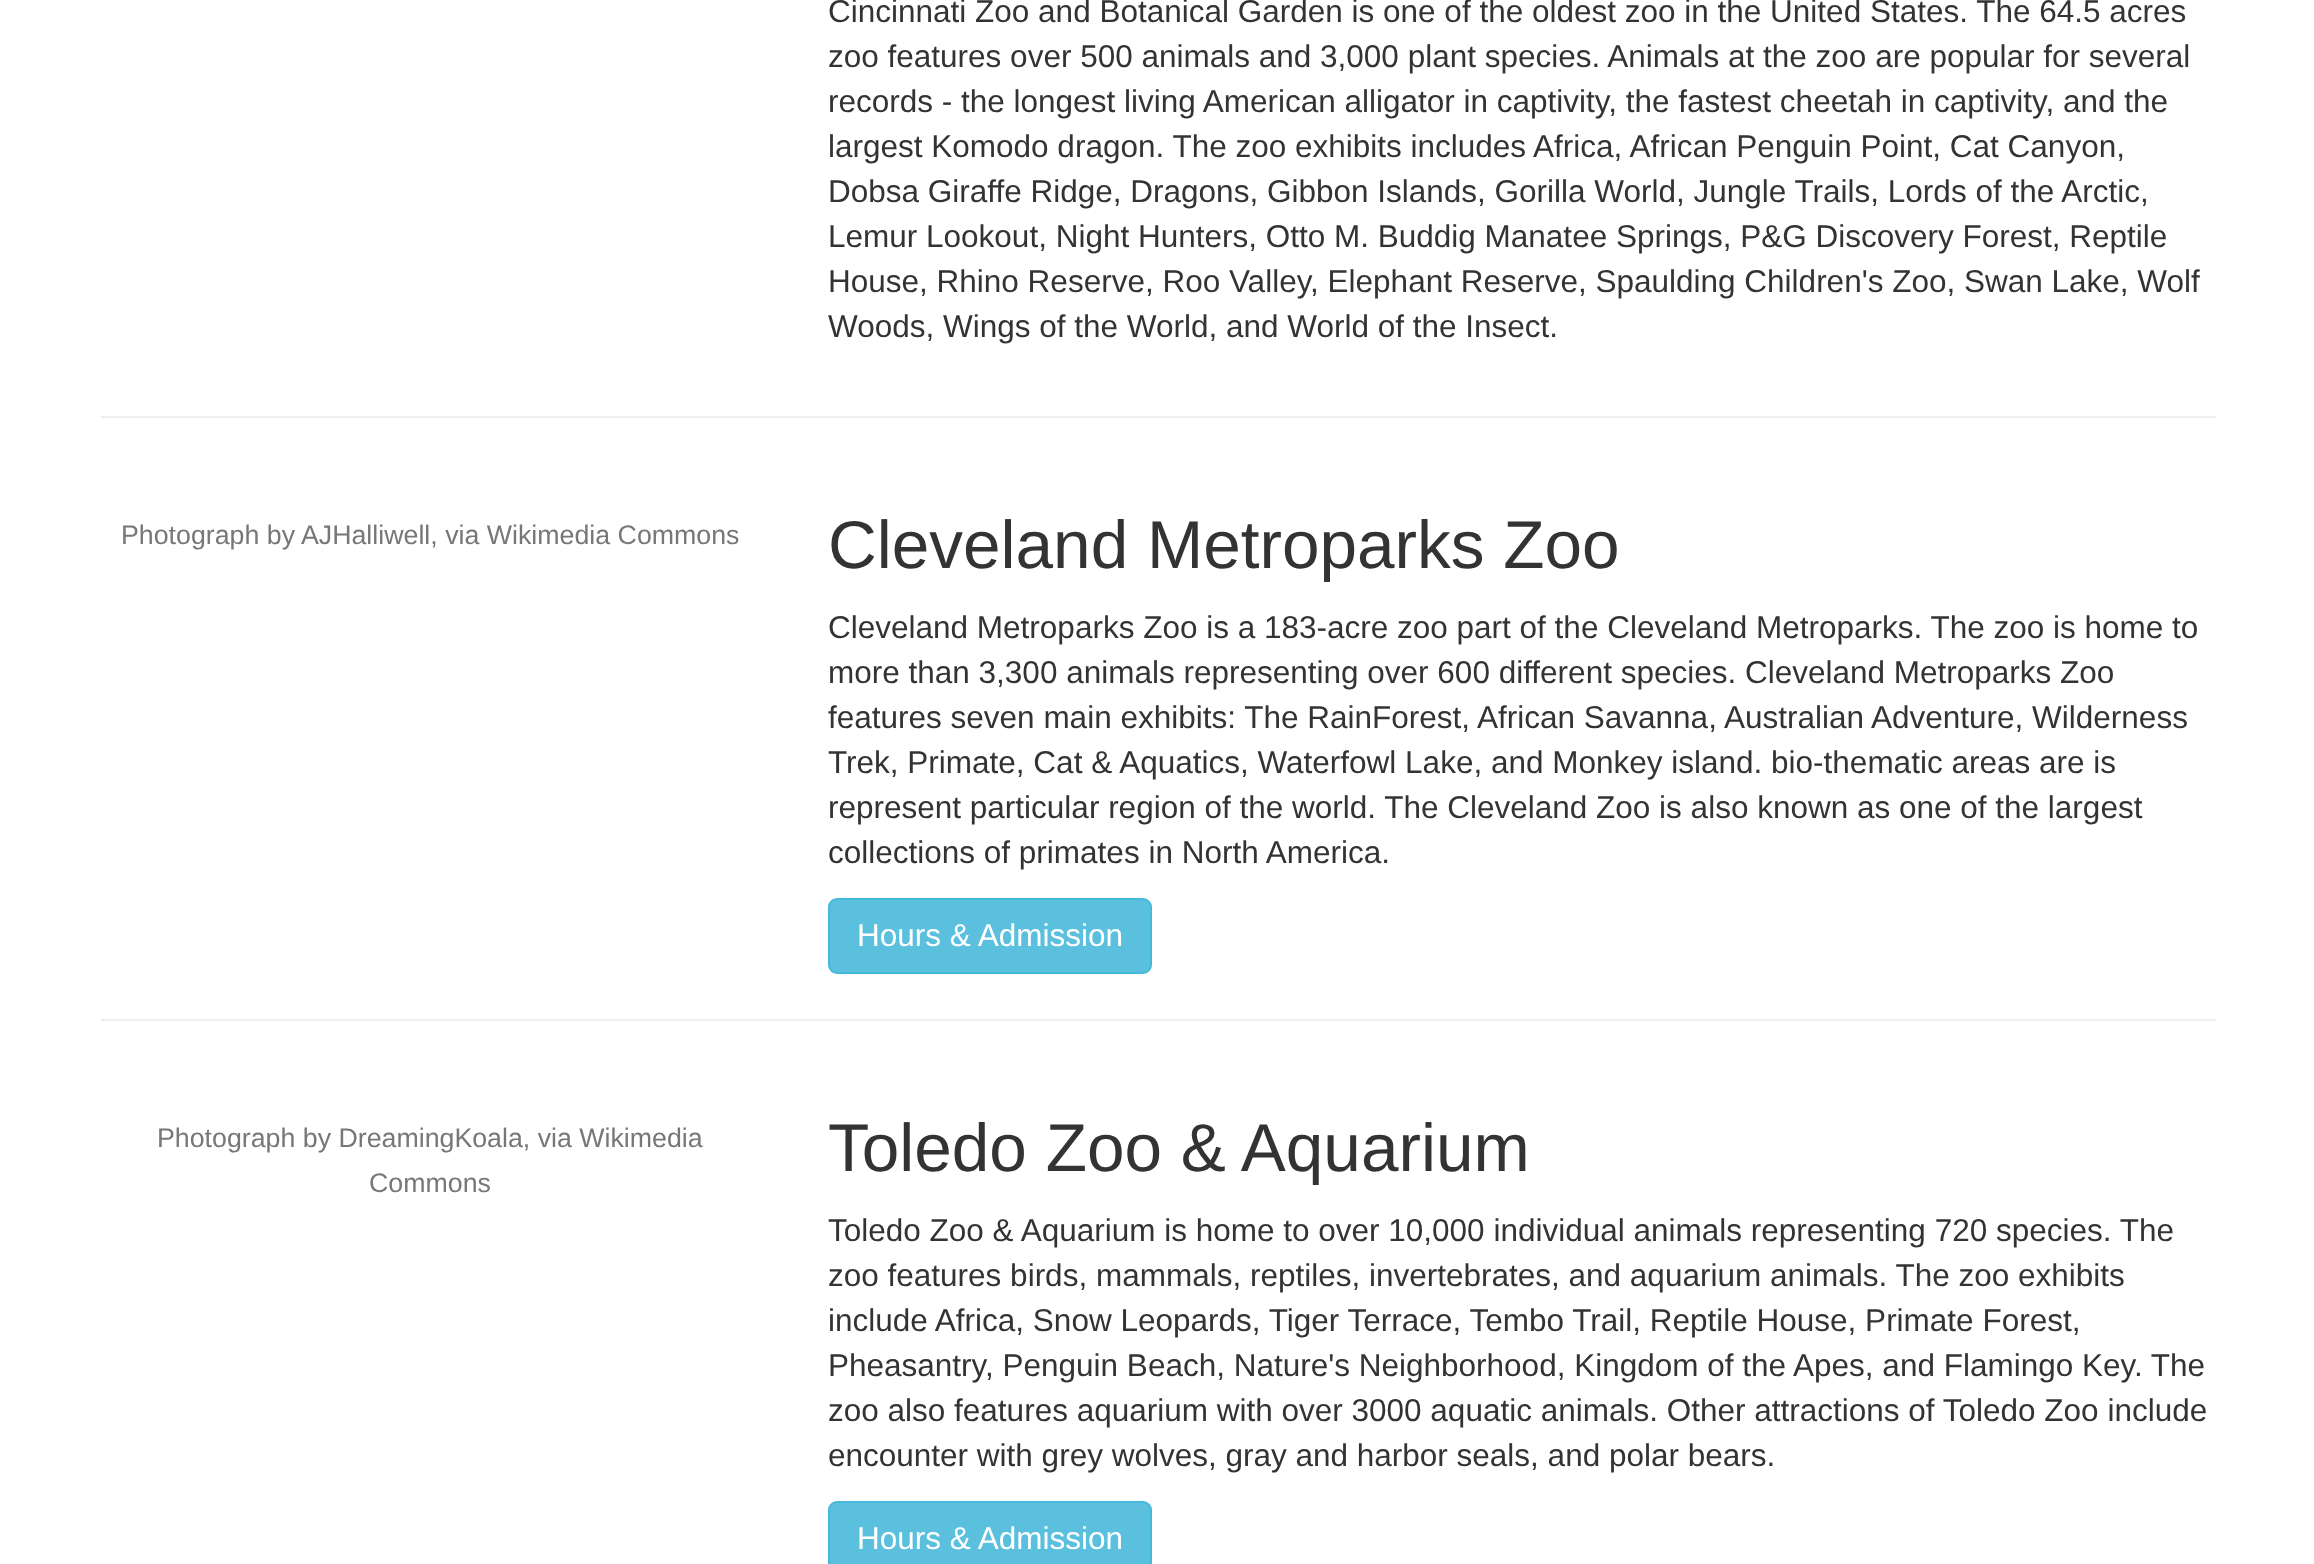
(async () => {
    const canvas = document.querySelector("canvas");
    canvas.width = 2314;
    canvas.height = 1564;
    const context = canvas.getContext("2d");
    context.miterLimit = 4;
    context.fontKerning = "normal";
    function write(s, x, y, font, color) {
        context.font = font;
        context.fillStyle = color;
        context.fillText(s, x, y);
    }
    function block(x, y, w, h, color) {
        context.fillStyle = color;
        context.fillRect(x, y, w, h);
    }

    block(0, 0, 2314, 1564, "rgb(255, 255, 255)");
    write("Cincinnati Zoo and Botanical Garden is one of the oldest zoo in the United States. The 64.5 acres", 828, 22, "31.5px Liberation Sans", "rgb(51, 51, 51)");
    write("zoo features over 500 animals and 3,000 plant species. Animals at the zoo are popular for several", 828, 67, "31.5px Liberation Sans", "rgb(51, 51, 51)");
    write("records - the longest living American alligator in captivity, the fastest cheetah in captivity, and the", 828, 112, "31.5px Liberation Sans", "rgb(51, 51, 51)");
    write("largest Komodo dragon. The zoo exhibits includes Africa, African Penguin Point, Cat Canyon,", 828, 157, "31.5px Liberation Sans", "rgb(51, 51, 51)");
    write("Dobsa Giraffe Ridge, Dragons, Gibbon Islands, Gorilla World, Jungle Trails, Lords of the Arctic,", 828, 202, "31.5px Liberation Sans", "rgb(51, 51, 51)");
    write("Lemur Lookout, Night Hunters, Otto M. Buddig Manatee Springs, P&G Discovery Forest, Reptile", 828, 247, "31.5px Liberation Sans", "rgb(51, 51, 51)");
    write("House, Rhino Reserve, Roo Valley, Elephant Reserve, Spaulding Children's Zoo, Swan Lake, Wolf", 828, 292, "31.5px Liberation Sans", "rgb(51, 51, 51)");
    write("Woods, Wings of the World, and World of the Insect.", 828, 337, "31.5px Liberation Sans", "rgb(51, 51, 51)");
    block(101, 416, 2115, 2, "rgb(238, 238, 238)");
    write("Photograph by AJHalliwell, via Wikimedia Commons", 121, 544, "26.75px Liberation Sans", "rgb(119, 119, 119)");
    write("Cleveland Metroparks Zoo", 828, 568, "67.5px Liberation Sans", "rgb(51, 51, 51)");
    write("Cleveland Metroparks Zoo is a 183-acre zoo part of the Cleveland Metroparks. The zoo is home to", 828, 638, "31.5px Liberation Sans", "rgb(51, 51, 51)");
    write("more than 3,300 animals representing over 600 different species. Cleveland Metroparks Zoo", 828, 683, "31.5px Liberation Sans", "rgb(51, 51, 51)");
    write("features seven main exhibits: The RainForest, African Savanna, Australian Adventure, Wilderness", 828, 728, "31.5px Liberation Sans", "rgb(51, 51, 51)");
    write("Trek, Primate, Cat & Aquatics, Waterfowl Lake, and Monkey island. bio-thematic areas are is", 828, 773, "31.5px Liberation Sans", "rgb(51, 51, 51)");
    write("represent particular region of the world. The Cleveland Zoo is also known as one of the largest", 828, 818, "31.5px Liberation Sans", "rgb(51, 51, 51)");
    write("collections of primates in North America.", 828, 863, "31.5px Liberation Sans", "rgb(51, 51, 51)");
    context.fillStyle = "rgb(91, 192, 222)";
    context.beginPath();
    context.roundRect(829, 899, 322, 74, 8);
    context.fill();
    context.strokeStyle = "rgb(70, 184, 218)";
    context.lineWidth = 2;
    context.stroke();
    write("Hours & Admission", 857, 946, "31.5px Liberation Sans", "rgb(255, 255, 255)");
    block(101, 1019, 2115, 2, "rgb(238, 238, 238)");
    write("Photograph by DreamingKoala, via Wikimedia", 157, 1147, "26.75px Liberation Sans", "rgb(119, 119, 119)");
    write("Commons", 369, 1192, "26.75px Liberation Sans", "rgb(119, 119, 119)");
    write("Toledo Zoo & Aquarium", 828, 1171, "67.5px Liberation Sans", "rgb(51, 51, 51)");
    write("Toledo Zoo & Aquarium is home to over 10,000 individual animals representing 720 species. The", 828, 1241, "31.5px Liberation Sans", "rgb(51, 51, 51)");
    write("zoo features birds, mammals, reptiles, invertebrates, and aquarium animals. The zoo exhibits", 828, 1286, "31.5px Liberation Sans", "rgb(51, 51, 51)");
    write("include Africa, Snow Leopards, Tiger Terrace, Tembo Trail, Reptile House, Primate Forest,", 828, 1331, "31.5px Liberation Sans", "rgb(51, 51, 51)");
    write("Pheasantry, Penguin Beach, Nature's Neighborhood, Kingdom of the Apes, and Flamingo Key. The", 828, 1376, "31.5px Liberation Sans", "rgb(51, 51, 51)");
    write("zoo also features aquarium with over 3000 aquatic animals. Other attractions of Toledo Zoo include", 828, 1421, "31.5px Liberation Sans", "rgb(51, 51, 51)");
    write("encounter with grey wolves, gray and harbor seals, and polar bears.", 828, 1466, "31.5px Liberation Sans", "rgb(51, 51, 51)");
    context.fillStyle = "rgb(91, 192, 222)";
    context.beginPath();
    context.roundRect(829, 1502, 322, 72, 8);
    context.fill();
    context.stroke();
    write("Hours & Admission", 857, 1549, "31.5px Liberation Sans", "rgb(255, 255, 255)");
})();
